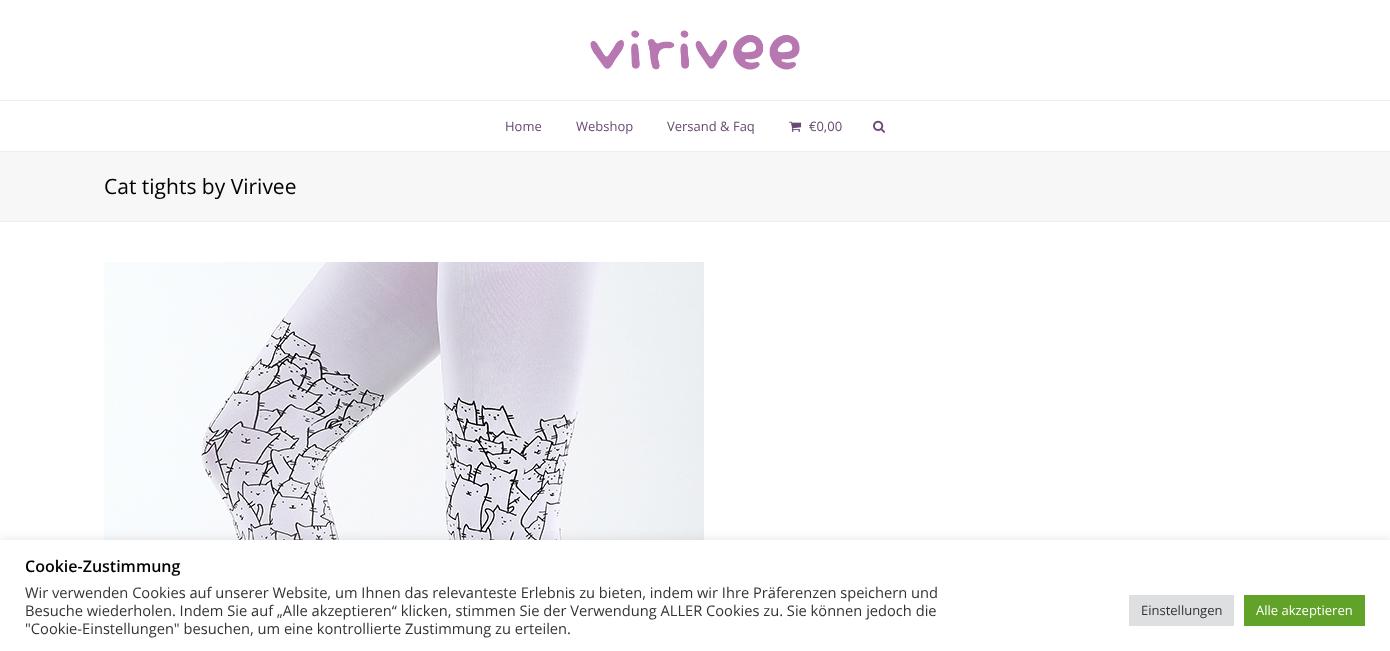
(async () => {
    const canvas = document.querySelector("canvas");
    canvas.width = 1390;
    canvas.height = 651;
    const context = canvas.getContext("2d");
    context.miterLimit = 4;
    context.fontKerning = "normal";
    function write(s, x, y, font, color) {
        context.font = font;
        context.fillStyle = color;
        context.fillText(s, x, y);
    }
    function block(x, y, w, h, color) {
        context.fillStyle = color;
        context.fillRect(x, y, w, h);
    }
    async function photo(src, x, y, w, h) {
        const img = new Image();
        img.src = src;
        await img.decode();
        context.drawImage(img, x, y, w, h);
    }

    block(0, 0, 1390, 651, "rgb(255, 255, 255)");
    await photo("media/1.png", 590, 30, 210, 40);
    block(0, 100, 1390, 1, "rgb(238, 238, 238)");
    write("Home", 505, 131, "13px Open Sans", "rgb(104, 74, 114)");
    write("Webshop", 576, 131, "13px Open Sans", "rgb(104, 74, 114)");
    write("Versand & Faq", 667, 131, "13px Open Sans", "rgb(104, 74, 114)");
    await photo("media/2.png", 789, 121, 13, 11);
    write("€0,00", 809, 131, "13px Open Sans", "rgb(104, 74, 114)");
    await photo("media/3.png", 873, 120, 12, 13);
    block(0, 152, 1390, 69, "rgb(247, 247, 247)");
    block(0, 151, 1390, 1, "rgb(238, 238, 238)");
    block(0, 221, 1390, 1, "rgb(238, 238, 238)");
    write("Cat tights by Virivee", 104, 194, "21px Open Sans", "rgb(0, 0, 0)");
    await photo("media/4.png", 104, 262, 600, 278);
    context.fillStyle = "rgba(172, 171, 171, 0.3)";
    context.filter = "blur(5px)";
    context.beginPath();
    context.rect(0, 539, 1390, 111);
    context.fill();
    context.filter = "none";
    block(0, 540, 1390, 111, "rgb(255, 255, 255)");
    write("Cookie-Zustimmung", 25, 572, "600 16px Open Sans", "rgb(0, 0, 0)");
    write("Wir verwenden Cookies auf unserer Website, um Ihnen das relevanteste Erlebnis zu bieten, indem wir Ihre Präferenzen speichern und", 25, 598, "14.67px Open Sans", "rgb(51, 51, 51)");
    write("Besuche wiederholen. Indem Sie auf „Alle akzeptieren“ klicken, stimmen Sie der Verwendung ALLER Cookies zu. Sie können jedoch die", 25, 616, "14.67px Open Sans", "rgb(51, 51, 51)");
    write("\"Cookie-Einstellungen\" besuchen, um eine kontrollierte Zustimmung zu erteilen.", 25, 634, "14.67px Open Sans", "rgb(51, 51, 51)");
    block(1129, 595, 105, 31, "rgb(222, 223, 224)");
    write("Einstellungen", 1141, 615, "13px Open Sans", "rgb(51, 51, 51)");
    block(1244, 595, 121, 31, "rgb(97, 162, 41)");
    write("Alle akzeptieren", 1256, 615, "13px Open Sans", "rgb(255, 255, 255)");
})();
